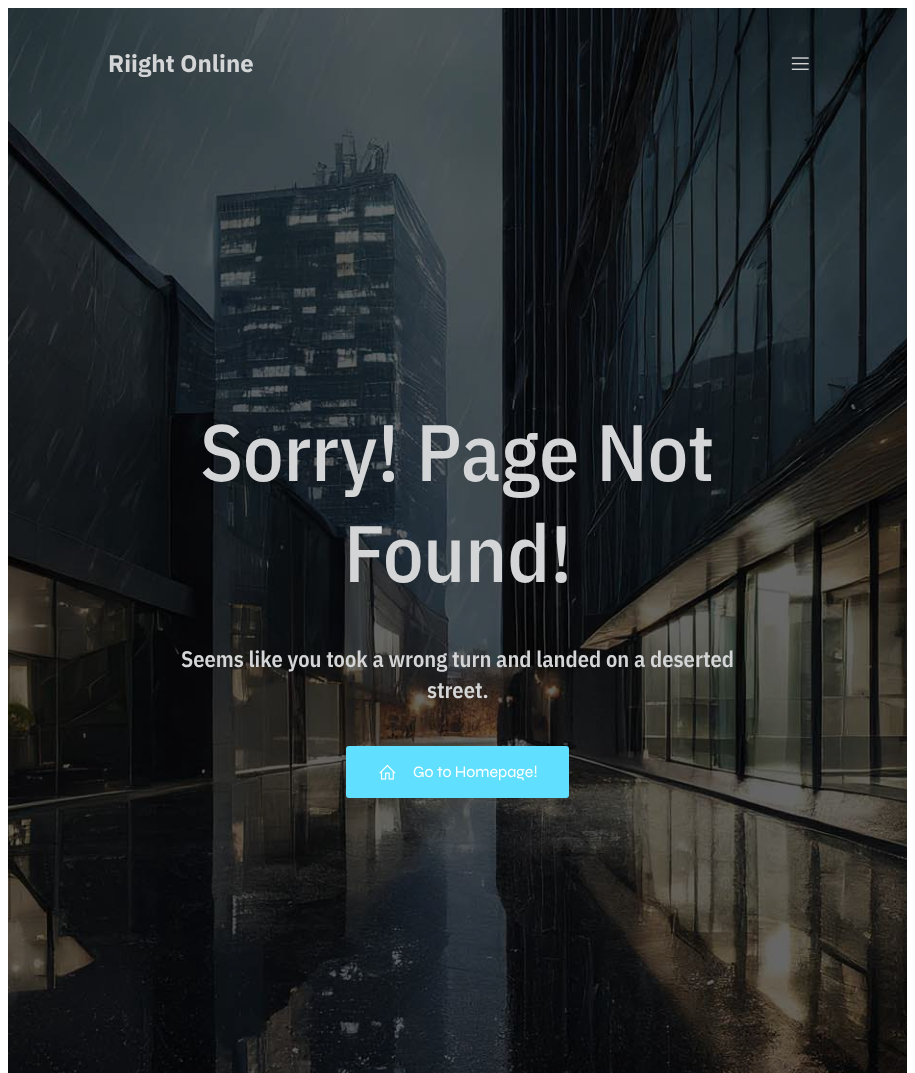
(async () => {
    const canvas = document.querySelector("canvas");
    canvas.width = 915;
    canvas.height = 1073;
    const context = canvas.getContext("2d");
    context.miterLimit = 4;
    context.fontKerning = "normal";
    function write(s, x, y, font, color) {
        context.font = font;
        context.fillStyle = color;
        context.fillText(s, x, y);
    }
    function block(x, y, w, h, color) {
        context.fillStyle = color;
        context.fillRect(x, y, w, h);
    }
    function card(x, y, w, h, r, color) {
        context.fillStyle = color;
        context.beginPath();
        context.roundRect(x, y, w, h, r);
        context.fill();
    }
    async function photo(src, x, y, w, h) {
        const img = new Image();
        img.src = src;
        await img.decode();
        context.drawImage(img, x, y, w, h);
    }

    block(0, 0, 915, 1073, "rgb(255, 255, 255)");
    await photo("media/2.png", 8, 8, 899, 1065);
    write("Riight Online", 108, 72, "bold 24px IBM Plex Sans", "rgb(212, 213, 214)");
    await photo("media/1.png", 791, 57, 18, 13);
    write("Sorry! Page Not", 200, 481, "500 80px IBM Plex Sans Condensed", "rgb(212, 213, 214)");
    write("Found!", 344, 582, "500 80px IBM Plex Sans Condensed", "rgb(212, 213, 214)");
    write("Seems like you took a wrong turn and landed on a deserted", 181, 667, "600 22.4px IBM Plex Sans Condensed", "rgb(212, 213, 214)");
    write("street.", 427, 698, "600 22.4px IBM Plex Sans Condensed", "rgb(212, 213, 214)");
    card(346, 746, 223, 52, 3, "rgb(96, 223, 255)");
    await photo("media/3.png", 379, 764, 17, 16);
    write("Go to Homepage!", 413, 777, "16px Syne", "rgb(255, 255, 255)");
})();
